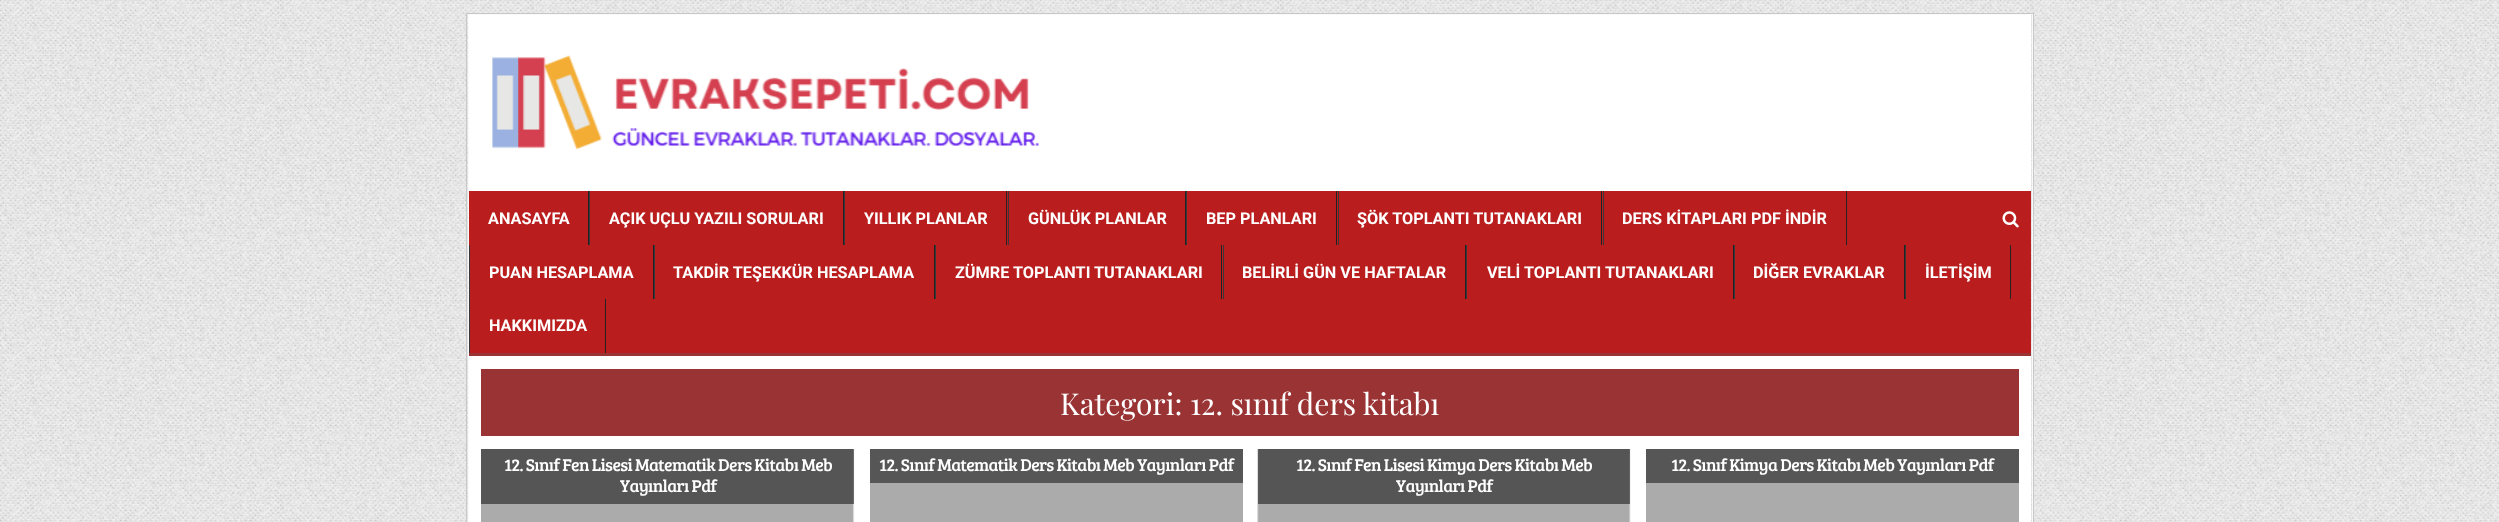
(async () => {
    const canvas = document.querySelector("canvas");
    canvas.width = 2499;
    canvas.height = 522;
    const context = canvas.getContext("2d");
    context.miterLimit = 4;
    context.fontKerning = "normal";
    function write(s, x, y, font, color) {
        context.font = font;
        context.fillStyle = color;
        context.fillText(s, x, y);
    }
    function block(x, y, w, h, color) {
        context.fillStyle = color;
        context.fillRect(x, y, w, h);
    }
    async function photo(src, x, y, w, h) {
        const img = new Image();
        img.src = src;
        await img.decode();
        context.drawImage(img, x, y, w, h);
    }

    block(0, 0, 2499, 522, "rgb(255, 255, 255)");
    await photo("media/1.png", 0, 0, 2499, 522);
    context.strokeStyle = "rgb(200, 200, 200)";
    context.strokeRect(466.5, 13.5, 1567, 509);
    context.strokeStyle = "rgb(249, 249, 249)";
    context.strokeRect(468.5, 14.5, 1564, 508);
    block(469, 15, 1562, 176, "rgb(255, 255, 255)");
    await photo("media/2.png", 492, 55, 547, 95);
    block(469, 191, 1562, 162, "rgb(186, 29, 29)");
    block(469, 353, 1562, 3, "rgb(154, 51, 52)");
    block(588, 191, 1, 54, "rgb(34, 34, 34)");
    write("ANASAYFA", 488, 224, "bold 16.25px Roboto", "rgb(255, 255, 255)");
    block(843, 191, 1, 54, "rgb(34, 34, 34)");
    block(589, 191, 1, 54, "rgb(56, 56, 56)");
    write("AÇIK UÇLU YAZILI SORULARI", 609, 224, "bold 16.25px Roboto", "rgb(255, 255, 255)");
    block(1006, 191, 1, 54, "rgb(34, 34, 34)");
    block(844, 191, 1, 54, "rgb(56, 56, 56)");
    write("YILLIK PLANLAR", 864, 224, "bold 16.25px Roboto", "rgb(255, 255, 255)");
    block(1185, 191, 1, 54, "rgb(34, 34, 34)");
    block(1008, 191, 1, 54, "rgb(56, 56, 56)");
    write("GÜNLÜK PLANLAR", 1028, 224, "bold 16.25px Roboto", "rgb(255, 255, 255)");
    block(1336, 191, 1, 54, "rgb(34, 34, 34)");
    block(1186, 191, 1, 54, "rgb(56, 56, 56)");
    write("BEP PLANLARI", 1206, 224, "bold 16.25px Roboto", "rgb(255, 255, 255)");
    block(1601, 191, 1, 54, "rgb(34, 34, 34)");
    block(1338, 191, 1, 54, "rgb(56, 56, 56)");
    write("ŞÖK TOPLANTI TUTANAKLARI", 1357, 224, "bold 16.25px Roboto", "rgb(255, 255, 255)");
    block(1846, 191, 1, 54, "rgb(34, 34, 34)");
    block(1603, 191, 1, 54, "rgb(56, 56, 56)");
    write("DERS KİTAPLARI PDF İNDİR", 1622, 224, "bold 16.25px Roboto", "rgb(255, 255, 255)");
    block(653, 245, 1, 54, "rgb(34, 34, 34)");
    block(469, 245, 1, 108, "rgb(56, 56, 56)");
    write("PUAN HESAPLAMA", 489, 278, "bold 16.25px Roboto", "rgb(255, 255, 255)");
    block(934, 245, 1, 54, "rgb(34, 34, 34)");
    block(654, 245, 1, 54, "rgb(56, 56, 56)");
    write("TAKDİR TEŞEKKÜR HESAPLAMA", 673, 278, "bold 16.25px Roboto", "rgb(255, 255, 255)");
    block(1221, 245, 1, 54, "rgb(34, 34, 34)");
    block(935, 245, 1, 54, "rgb(56, 56, 56)");
    write("ZÜMRE TOPLANTI TUTANAKLARI", 955, 278, "bold 16.25px Roboto", "rgb(255, 255, 255)");
    block(1465, 245, 1, 54, "rgb(34, 34, 34)");
    block(1223, 245, 1, 54, "rgb(56, 56, 56)");
    write("BELİRLİ GÜN VE HAFTALAR", 1242, 278, "bold 16.25px Roboto", "rgb(255, 255, 255)");
    block(1733, 245, 1, 54, "rgb(34, 34, 34)");
    block(1466, 245, 1, 54, "rgb(56, 56, 56)");
    write("VELİ TOPLANTI TUTANAKLARI", 1487, 278, "bold 16.25px Roboto", "rgb(255, 255, 255)");
    block(1904, 245, 1, 54, "rgb(34, 34, 34)");
    block(1734, 245, 1, 54, "rgb(56, 56, 56)");
    write("DİĞER EVRAKLAR", 1753, 278, "bold 16.25px Roboto", "rgb(255, 255, 255)");
    block(2010, 245, 1, 54, "rgb(34, 34, 34)");
    block(1905, 245, 1, 54, "rgb(56, 56, 56)");
    write("İLETİŞİM", 1925, 278, "bold 16.25px Roboto", "rgb(255, 255, 255)");
    block(605, 299, 1, 54, "rgb(34, 34, 34)");
    write("HAKKIMIZDA", 489, 331, "bold 16.25px Roboto", "rgb(255, 255, 255)");
    await photo("media/3.png", 2002, 211, 17, 17);
    block(469, 356, 1562, 166, "rgb(255, 255, 255)");
    block(481, 369, 1538, 67, "rgb(154, 51, 52)");
    write("Kategori: 12. sınıf ders kitabı", 1060, 415, "30px Playfair Display", "rgb(255, 255, 255)");
    await photo("media/4.png", 481, 449, 374, 73);
    block(481, 449, 373, 55, "rgba(0, 0, 0, 0.5)");
    context.letterSpacing = "-0.6px";
    write("12. Sınıf Fen Lisesi Matematik Ders Kitabı Meb", 504, 471, "17.5px Bree Serif", "rgb(255, 255, 255)");
    write("Yayınları Pdf", 620, 492, "17.5px Bree Serif", "rgb(255, 255, 255)");
    block(870, 449, 373, 34, "rgb(86, 86, 86)");
    write("12. Sınıf Matematik Ders Kitabı Meb Yayınları Pdf", 879, 471, "17.5px Bree Serif", "rgb(255, 255, 255)");
    block(870, 483, 373, 39, "rgb(171, 171, 171)");
    await photo("media/5.png", 1257, 449, 374, 73);
    block(1258, 449, 372, 55, "rgba(0, 0, 0, 0.5)");
    write("12. Sınıf Fen Lisesi Kimya Ders Kitabı Meb", 1296, 471, "17.5px Bree Serif", "rgb(255, 255, 255)");
    write("Yayınları Pdf", 1396, 492, "17.5px Bree Serif", "rgb(255, 255, 255)");
    block(1646, 449, 373, 34, "rgb(86, 86, 86)");
    write("12. Sınıf Kimya Ders Kitabı Meb Yayınları Pdf", 1671, 471, "17.5px Bree Serif", "rgb(255, 255, 255)");
    block(1646, 483, 373, 39, "rgb(171, 171, 171)");
})();
